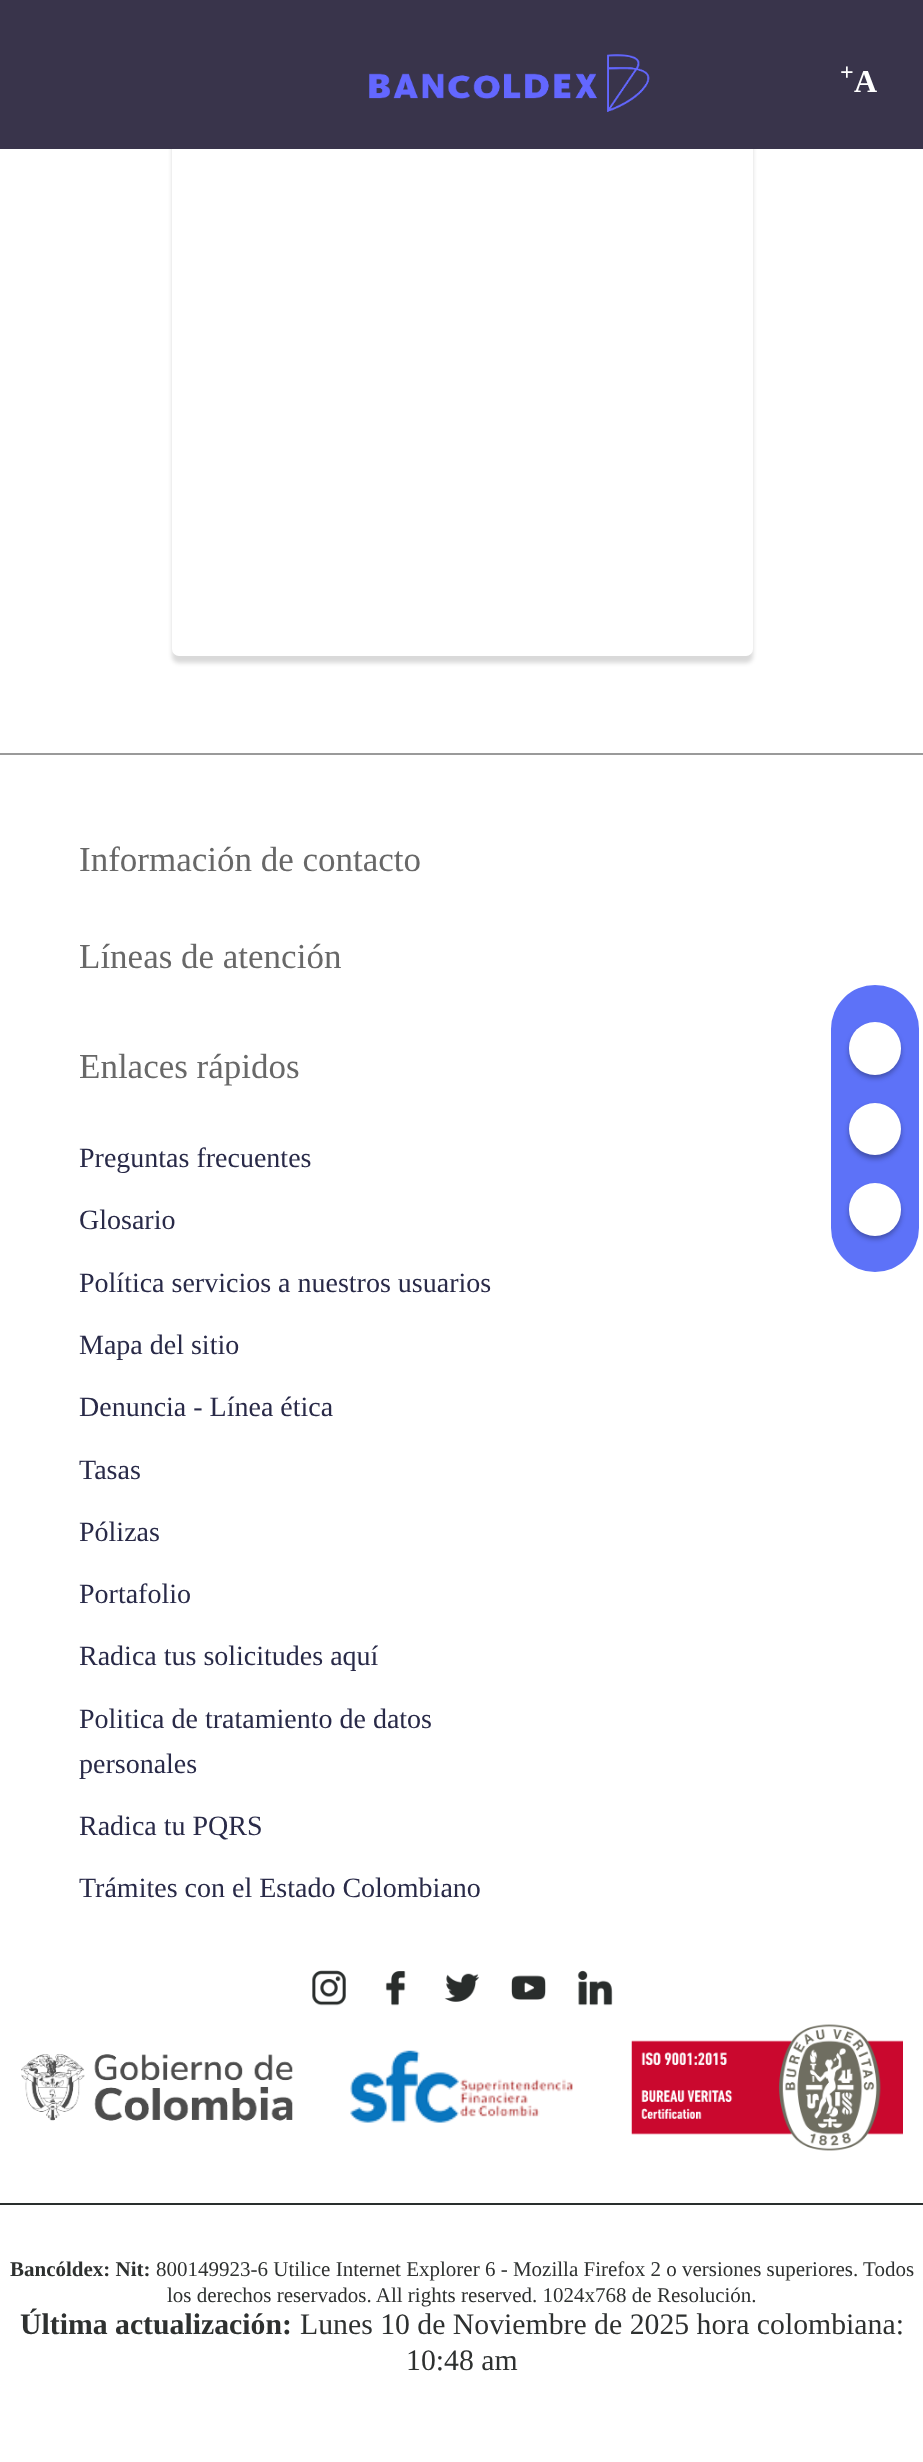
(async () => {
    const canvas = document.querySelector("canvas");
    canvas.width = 923;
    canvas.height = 2462;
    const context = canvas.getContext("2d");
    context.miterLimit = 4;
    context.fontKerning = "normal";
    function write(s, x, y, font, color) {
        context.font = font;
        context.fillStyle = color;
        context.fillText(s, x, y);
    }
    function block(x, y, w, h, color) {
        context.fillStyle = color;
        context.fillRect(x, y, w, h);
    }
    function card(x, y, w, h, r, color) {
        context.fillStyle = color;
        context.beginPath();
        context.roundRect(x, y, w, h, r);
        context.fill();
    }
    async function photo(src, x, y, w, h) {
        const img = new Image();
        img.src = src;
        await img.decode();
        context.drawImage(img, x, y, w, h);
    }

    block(0, 0, 923, 2462, "rgb(255, 255, 255)");
    context.fillStyle = "rgba(0, 0, 0, 0.15)";
    context.filter = "blur(2px)";
    context.beginPath();
    context.roundRect(172, 33, 581, 630, 7);
    context.fill();
    context.filter = "none";
    card(172, 26, 581, 630, 7, "rgb(255, 255, 255)");
    card(831, 985, 88, 287, 44, "rgb(93, 114, 248)");
    context.fillStyle = "rgba(0, 0, 0, 0.3)";
    context.filter = "blur(2.5px)";
    context.beginPath();
    context.roundRect(849, 1026, 52, 52, 26);
    context.fill();
    context.filter = "none";
    card(849, 1022, 52, 53, 26, "rgb(255, 255, 255)");
    context.fillStyle = "rgba(0, 0, 0, 0.3)";
    context.filter = "blur(2.5px)";
    context.beginPath();
    context.roundRect(849, 1106, 52, 53, 26);
    context.fill();
    context.filter = "none";
    context.fillStyle = "rgb(255, 255, 255)";
    context.beginPath();
    context.arc(875, 1129, 26, 0, Math.PI * 2);
    context.fill();
    context.fillStyle = "rgba(0, 0, 0, 0.3)";
    context.filter = "blur(2.5px)";
    context.beginPath();
    context.roundRect(849, 1187, 52, 52, 26);
    context.fill();
    context.filter = "none";
    card(849, 1183, 52, 53, 26, "rgb(255, 255, 255)");
    block(0, 0, 923, 149, "rgb(57, 52, 75)");
    await photo("media/1.png", 369, 54, 281, 58);
    write("+", 840, 80, "bold 24px Liberation Serif", "rgb(255, 255, 255)");
    write("A", 854, 92, "bold 32px Liberation Serif", "rgb(255, 255, 255)");
    block(0, 753, 923, 2, "rgb(154, 154, 154)");
    write("Información de contacto", 79, 871, "35px Liberation Serif", "rgb(104, 104, 104)");
    write("Líneas de atención", 79, 968, "35px Liberation Serif", "rgb(104, 104, 104)");
    write("Enlaces rápidos", 79, 1078, "35px Liberation Serif", "rgb(104, 104, 104)");
    write("Preguntas frecuentes", 79, 1167, "28px Liberation Serif", "rgb(41, 42, 72)");
    write("Glosario", 79, 1229, "28px Liberation Serif", "rgb(41, 42, 72)");
    write("Política servicios a nuestros usuarios", 79, 1292, "28px Liberation Serif", "rgb(41, 42, 72)");
    write("Mapa del sitio", 79, 1354, "28px Liberation Serif", "rgb(41, 42, 72)");
    write("Denuncia - Línea ética", 79, 1416, "28px Liberation Serif", "rgb(41, 42, 72)");
    write("Tasas", 79, 1479, "28px Liberation Serif", "rgb(41, 42, 72)");
    write("Pólizas", 79, 1541, "28px Liberation Serif", "rgb(41, 42, 72)");
    write("Portafolio", 79, 1603, "28px Liberation Serif", "rgb(41, 42, 72)");
    write("Radica tus solicitudes aquí", 79, 1665, "28px Liberation Serif", "rgb(41, 42, 72)");
    write("Politica de tratamiento de datos", 79, 1728, "28px Liberation Serif", "rgb(41, 42, 72)");
    write("personales", 79, 1773, "28px Liberation Serif", "rgb(41, 42, 72)");
    write("Radica tu PQRS", 79, 1835, "28px Liberation Serif", "rgb(41, 42, 72)");
    write("Trámites con el Estado Colombiano", 79, 1897, "28px Liberation Serif", "rgb(41, 42, 72)");
    await photo("media/2.png", 312, 1970, 34, 36);
    await photo("media/3.png", 385, 1971, 21, 35);
    await photo("media/4.png", 444, 1973, 36, 29);
    await photo("media/5.png", 511, 1975, 35, 25);
    await photo("media/6.png", 577, 1970, 36, 36);
    await photo("media/7.png", 21, 2054, 272, 67);
    await photo("media/8.png", 350, 2050, 223, 73);
    await photo("media/9.png", 631, 2024, 272, 127);
    block(0, 2203, 923, 2, "rgb(41, 46, 45)");
    write("Bancóldex: Nit:", 10, 2276, "bold 21px Liberation Serif", "rgb(46, 49, 48)");
    write("800149923-6 Utilice Internet Explorer 6 - Mozilla Firefox 2 o versiones superiores. Todos", 156, 2276, "21px Liberation Serif", "rgb(46, 49, 48)");
    write("los derechos reservados. All rights reserved. 1024x768 de Resolución.", 167, 2302, "21px Liberation Serif", "rgb(46, 49, 48)");
    write("Última actualización:", 20, 2334, "bold 29.75px Liberation Serif", "rgb(46, 49, 48)");
    write("Lunes 10 de Noviembre de 2025 hora colombiana:", 300, 2334, "29.75px Liberation Serif", "rgb(46, 49, 48)");
    write("10:48 am", 406, 2370, "29.75px Liberation Serif", "rgb(46, 49, 48)");
})();
